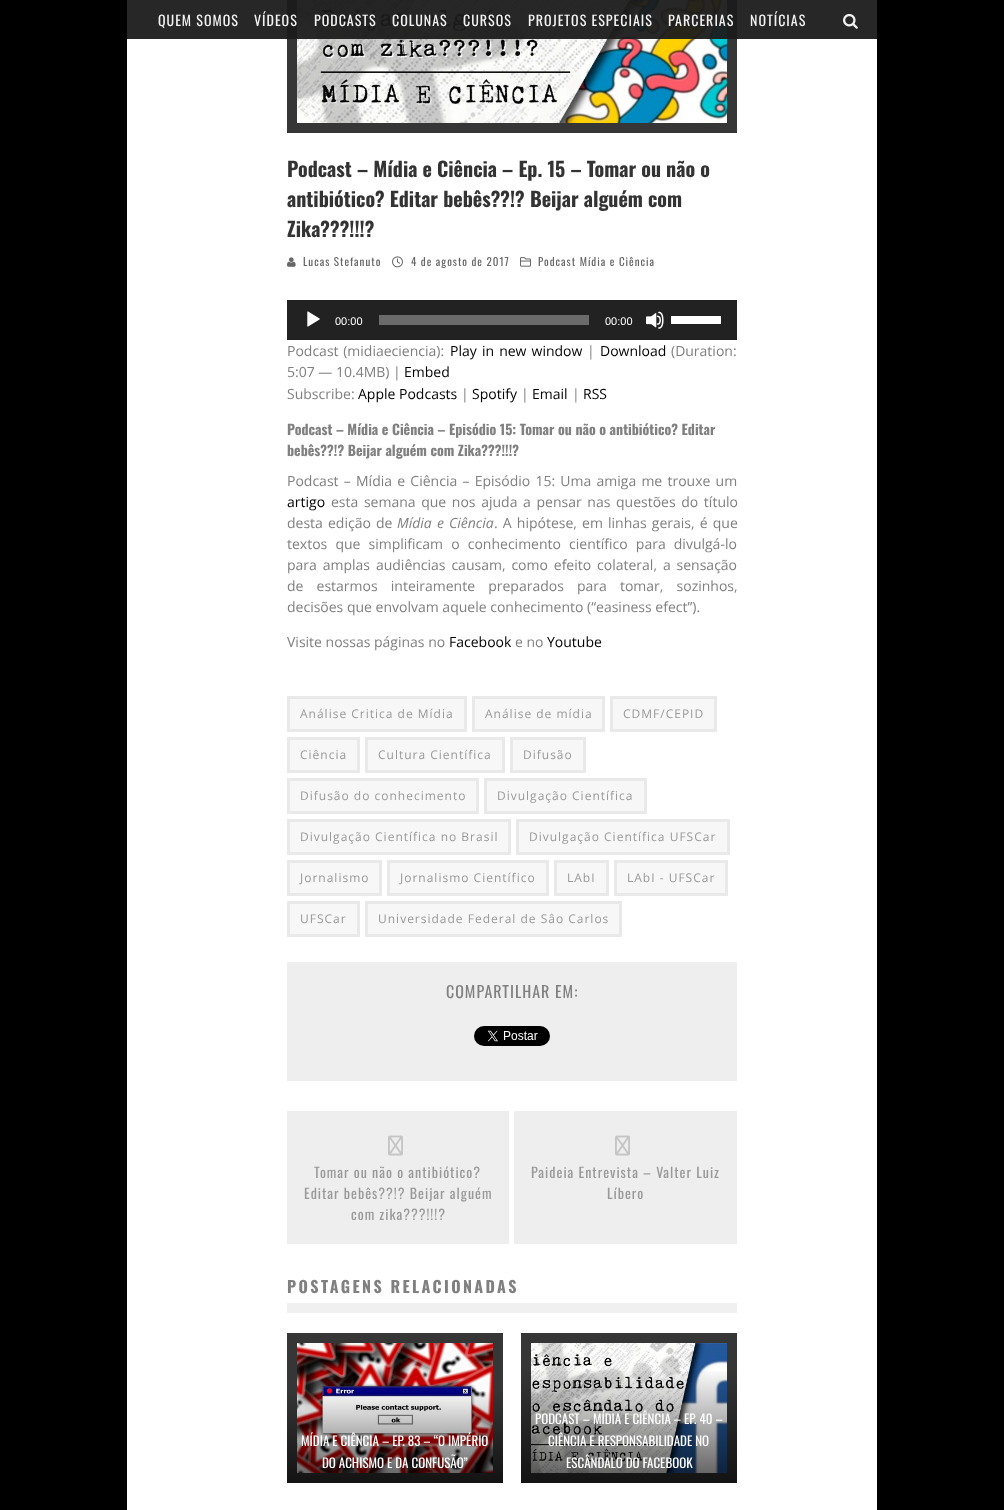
(async () => {
    const canvas = document.querySelector("canvas");
    canvas.width = 1004;
    canvas.height = 1510;
    const context = canvas.getContext("2d");
    context.miterLimit = 4;
    context.fontKerning = "normal";
    function write(s, x, y, font, color) {
        context.font = font;
        context.fillStyle = color;
        context.fillText(s, x, y);
    }
    function block(x, y, w, h, color) {
        context.fillStyle = color;
        context.fillRect(x, y, w, h);
    }
    async function photo(src, x, y, w, h) {
        const img = new Image();
        img.src = src;
        await img.decode();
        context.drawImage(img, x, y, w, h);
    }
    let gradient;

    block(0, 0, 1004, 1510, "rgb(0, 0, 0)");
    block(127, 0, 750, 1510, "rgb(255, 255, 255)");
    block(287, 0, 450, 133, "rgb(54, 54, 54)");
    await photo("media/2.png", 297, 0, 430, 123);
    block(127, 0, 750, 39, "rgba(27, 27, 27, 0.95)");
    context.letterSpacing = "1px";
    write("QUEM SOMOS", 158, 26, "14px Oswald", "rgb(242, 242, 242)");
    write("VÍDEOS", 254, 26, "14px Oswald", "rgb(242, 242, 242)");
    write("PODCASTS", 314, 26, "14px Oswald", "rgb(242, 242, 242)");
    write("COLUNAS", 392, 26, "14px Oswald", "rgb(242, 242, 242)");
    write("CURSOS", 463, 26, "14px Oswald", "rgb(242, 242, 242)");
    write("PROJETOS ESPECIAIS", 528, 26, "14px Oswald", "rgb(242, 242, 242)");
    write("PARCERIAS", 668, 26, "14px Oswald", "rgb(242, 242, 242)");
    write("NOTÍCIAS", 750, 26, "14px Oswald", "rgb(242, 242, 242)");
    await photo("media/1.png", 843, 13, 15, 16);
    context.letterSpacing = "0px";
    write("Podcast – Mídia e Ciência – Ep. 15 – Tomar ou não o", 287, 177, "bold 20px Oswald", "rgb(51, 51, 51)");
    write("antibiótico? Editar bebês??!? Beijar alguém com", 287, 207, "bold 20px Oswald", "rgb(51, 51, 51)");
    write("Zika???!!!?", 287, 237, "bold 20px Oswald", "rgb(51, 51, 51)");
    await photo("media/3.png", 287, 257, 9, 10);
    context.letterSpacing = "1px";
    write("Lucas Stefanuto", 303, 266, "11px Oswald", "rgb(103, 103, 103)");
    await photo("media/4.png", 392, 256, 11, 12);
    write("4 de agosto de 2017", 411, 266, "11px Oswald", "rgb(103, 103, 103)");
    await photo("media/5.png", 520, 257, 11, 10);
    write("Podcast Mídia e Ciência", 538, 266, "11px Oswald", "rgb(103, 103, 103)");
    block(287, 300, 450, 40, "rgb(34, 34, 34)");
    await photo("media/6.png", 307, 311, 13, 16);
    context.letterSpacing = "0px";
    write("00:00", 335, 325, "11px Liberation Sans", "rgb(255, 255, 255)");
    block(379, 315, 210, 10, "rgb(107, 107, 107)");
    write("00:00", 605, 325, "11px Liberation Sans", "rgb(255, 255, 255)");
    await photo("media/7.png", 646, 311, 18, 18);
    block(671, 316, 50, 8, "rgb(255, 255, 255)");
    context.wordSpacing = "1px";
    write("Podcast (midiaeciencia):", 287, 356, "14px Open Sans", "rgb(128, 128, 128)");
    context.wordSpacing = "1.5px";
    write("Play in new window", 450, 356, "14px Open Sans", "rgb(0, 0, 0)");
    context.wordSpacing = "0px";
    write("|", 587, 356, "14px Open Sans", "rgb(128, 128, 128)");
    write("Download", 600, 356, "14px Open Sans", "rgb(0, 0, 0)");
    write("(Duration:", 671, 356, "14px Open Sans", "rgb(128, 128, 128)");
    write("5:07 — 10.4MB) |", 287, 377, "14px Open Sans", "rgb(128, 128, 128)");
    write("Embed", 404, 377, "14px Open Sans", "rgb(0, 0, 0)");
    write("Subscribe:", 287, 399, "14px Open Sans", "rgb(128, 128, 128)");
    write("Apple Podcasts", 358, 399, "14px Open Sans", "rgb(0, 0, 0)");
    write("|", 461, 399, "14px Open Sans", "rgb(128, 128, 128)");
    write("Spotify", 472, 399, "14px Open Sans", "rgb(0, 0, 0)");
    write("|", 521, 399, "14px Open Sans", "rgb(128, 128, 128)");
    write("Email", 532, 399, "14px Open Sans", "rgb(0, 0, 0)");
    write("|", 572, 399, "14px Open Sans", "rgb(128, 128, 128)");
    write("RSS", 583, 399, "14px Open Sans", "rgb(0, 0, 0)");
    write("Podcast – Mídia e Ciência – Episódio 15: Tomar ou não o antibiótico? Editar", 287, 435, "bold 14px Oswald", "rgb(128, 128, 128)");
    write("bebês??!? Beijar alguém com Zika???!!!?", 287, 456, "bold 14px Oswald", "rgb(128, 128, 128)");
    context.wordSpacing = "1.6px";
    write("Podcast – Mídia e Ciência – Episódio 15: Uma amiga me trouxe um", 287, 486, "14px Open Sans", "rgb(128, 128, 128)");
    context.wordSpacing = "0px";
    write("artigo", 287, 507, "14px Open Sans", "rgb(0, 0, 0)");
    context.wordSpacing = "2px";
    write("esta semana que nos ajuda a pensar nas questões do título", 331, 507, "14px Open Sans", "rgb(128, 128, 128)");
    context.wordSpacing = "1.5px";
    write("desta edição de", 287, 528, "14px Open Sans", "rgb(128, 128, 128)");
    write("Mídia e Ciência", 397, 528, "italic 14px Open Sans", "rgb(128, 128, 128)");
    write(". A hipótese, em linhas gerais, é que", 494, 528, "14px Open Sans", "rgb(128, 128, 128)");
    context.wordSpacing = "4.5px";
    write("textos que simplificam o conhecimento científico para divulgá-lo", 287, 549, "14px Open Sans", "rgb(128, 128, 128)");
    context.wordSpacing = "2.25px";
    write("para amplas audiências causam, como efeito colateral, a sensação", 287, 570, "14px Open Sans", "rgb(128, 128, 128)");
    context.wordSpacing = "9.5px";
    write("de estarmos inteiramente preparados para tomar, sozinhos,", 287, 591, "14px Open Sans", "rgb(128, 128, 128)");
    context.wordSpacing = "0px";
    write("decisões que envolvam aquele conhecimento (“easiness efect”).", 287, 612, "14px Open Sans", "rgb(128, 128, 128)");
    write("Visite nossas páginas no", 287, 647, "14px Open Sans", "rgb(128, 128, 128)");
    write("Facebook", 449, 647, "14px Open Sans", "rgb(0, 0, 0)");
    write("e no", 515, 647, "14px Open Sans", "rgb(128, 128, 128)");
    write("Youtube", 547, 647, "14px Open Sans", "rgb(0, 0, 0)");
    context.fillStyle = "rgb(247, 247, 247)";
    context.beginPath();
    context.rect(288.5, 697.5, 177, 33);
    context.fill();
    context.strokeStyle = "rgb(233, 233, 233)";
    context.lineWidth = 3;
    context.stroke();
    context.letterSpacing = "1px";
    write("Análise Critica de Mídia", 300, 718, "12px Open Sans", "rgb(153, 153, 153)");
    context.fillStyle = "rgb(247, 247, 247)";
    context.beginPath();
    context.rect(473.5, 697.5, 130, 33);
    context.fill();
    context.stroke();
    write("Análise de mídia", 485, 718, "12px Open Sans", "rgb(153, 153, 153)");
    context.fillStyle = "rgb(247, 247, 247)";
    context.beginPath();
    context.rect(611.5, 697.5, 104, 33);
    context.fill();
    context.stroke();
    write("CDMF/CEPID", 623, 718, "12px Open Sans", "rgb(153, 153, 153)");
    context.fillStyle = "rgb(247, 247, 247)";
    context.beginPath();
    context.rect(288.5, 738.5, 70, 33);
    context.fill();
    context.stroke();
    write("Ciência", 300, 759, "12px Open Sans", "rgb(153, 153, 153)");
    context.fillStyle = "rgb(247, 247, 247)";
    context.beginPath();
    context.rect(366.5, 738.5, 137, 33);
    context.fill();
    context.stroke();
    write("Cultura Científica", 378, 759, "12px Open Sans", "rgb(153, 153, 153)");
    context.fillStyle = "rgb(247, 247, 247)";
    context.beginPath();
    context.rect(511.5, 738.5, 73, 33);
    context.fill();
    context.stroke();
    write("Difusão", 523, 759, "12px Open Sans", "rgb(153, 153, 153)");
    context.fillStyle = "rgb(247, 247, 247)";
    context.beginPath();
    context.rect(288.5, 779.5, 189, 33);
    context.fill();
    context.stroke();
    write("Difusão do conhecimento", 300, 800, "12px Open Sans", "rgb(153, 153, 153)");
    context.fillStyle = "rgb(247, 247, 247)";
    context.beginPath();
    context.rect(485.5, 779.5, 160, 33);
    context.fill();
    context.stroke();
    write("Divulgação Científica", 497, 800, "12px Open Sans", "rgb(153, 153, 153)");
    context.fillStyle = "rgb(247, 247, 247)";
    context.beginPath();
    context.rect(288.5, 820.5, 221, 33);
    context.fill();
    context.stroke();
    write("Divulgação Científica no Brasil", 300, 841, "12px Open Sans", "rgb(153, 153, 153)");
    context.fillStyle = "rgb(247, 247, 247)";
    context.beginPath();
    context.rect(517.5, 820.5, 211, 33);
    context.fill();
    context.stroke();
    write("Divulgação Científica UFSCar", 529, 841, "12px Open Sans", "rgb(153, 153, 153)");
    context.fillStyle = "rgb(247, 247, 247)";
    context.beginPath();
    context.rect(288.5, 861.5, 92, 33);
    context.fill();
    context.stroke();
    write("Jornalismo", 300, 882, "12px Open Sans", "rgb(153, 153, 153)");
    context.fillStyle = "rgb(247, 247, 247)";
    context.beginPath();
    context.rect(388.5, 861.5, 159, 33);
    context.fill();
    context.stroke();
    write("Jornalismo Científico", 400, 882, "12px Open Sans", "rgb(153, 153, 153)");
    context.fillStyle = "rgb(247, 247, 247)";
    context.beginPath();
    context.rect(555.5, 861.5, 52, 33);
    context.fill();
    context.stroke();
    write("LAbI", 567, 882, "12px Open Sans", "rgb(153, 153, 153)");
    context.fillStyle = "rgb(247, 247, 247)";
    context.beginPath();
    context.rect(615.5, 861.5, 111, 33);
    context.fill();
    context.stroke();
    write("LAbI - UFSCar", 627, 882, "12px Open Sans", "rgb(153, 153, 153)");
    context.fillStyle = "rgb(247, 247, 247)";
    context.beginPath();
    context.rect(288.5, 902.5, 70, 33);
    context.fill();
    context.stroke();
    write("UFSCar", 300, 923, "12px Open Sans", "rgb(153, 153, 153)");
    context.fillStyle = "rgb(247, 247, 247)";
    context.beginPath();
    context.rect(366.5, 902.5, 254, 33);
    context.fill();
    context.stroke();
    write("Universidade Federal de Sâo Carlos", 378, 923, "12px Open Sans", "rgb(153, 153, 153)");
    block(287, 962, 450, 119, "rgb(238, 238, 238)");
    write("COMPARTILHAR EM:", 446, 998, "16px Oswald", "rgb(128, 128, 128)");
    await photo("media/8.png", 474, 1026, 76, 20);
    block(287, 1111, 450, 133, "rgb(238, 238, 238)");
    block(509, 1111, 5, 133, "rgb(255, 255, 255)");
    await photo("media/9.png", 388, 1135, 15, 21);
    write("Tomar ou não o antibiótico?", 314, 1178, "14px Oswald", "rgb(153, 153, 153)");
    write("Editar bebês??!? Beijar alguém", 304, 1199, "14px Oswald", "rgb(153, 153, 153)");
    write("com zika???!!!?", 351, 1220, "14px Oswald", "rgb(153, 153, 153)");
    await photo("media/9.png", 615, 1135, 15, 21);
    write("Paideia Entrevista – Valter Luiz", 531, 1178, "14px Oswald", "rgb(153, 153, 153)");
    write("Líbero", 607, 1199, "14px Oswald", "rgb(153, 153, 153)");
    block(287, 1303, 450, 10, "rgb(240, 240, 240)");
    context.letterSpacing = "2.4px";
    write("POSTAGENS RELACIONADAS", 287, 1293, "bold 16px Oswald", "rgb(128, 128, 128)");
    block(287, 1333, 216, 150, "rgb(54, 54, 54)");
    await photo("media/10.png", 297, 1343, 196, 130);
    gradient = context.createLinearGradient(395, 1389, 395, 1483);
    gradient.addColorStop(0, "rgba(0, 0, 0, 0)");
    gradient.addColorStop(1, "rgba(0, 0, 0, 0.65)");
    context.fillStyle = gradient;
    context.fillRect(287, 1392, 216, 91);
    context.letterSpacing = "0px";
    write("MÍDIA E CIÊNCIA – EP. 83 – “O IMPÉRIO", 301, 1446, "13px Oswald", "rgb(255, 255, 255)");
    write("DO ACHISMO E DA CONFUSÃO”", 322, 1468, "13px Oswald", "rgb(255, 255, 255)");
    block(521, 1333, 216, 150, "rgb(54, 54, 54)");
    await photo("media/11.png", 531, 1343, 196, 130);
    gradient = context.createLinearGradient(629, 1367, 629, 1483);
    gradient.addColorStop(0, "rgba(0, 0, 0, 0)");
    gradient.addColorStop(1, "rgba(0, 0, 0, 0.65)");
    context.fillStyle = gradient;
    context.fillRect(521, 1371, 216, 112);
    write("PODCAST – MÍDIA E CIÊNCIA – EP. 40 –", 535, 1424, "13px Oswald", "rgb(255, 255, 255)");
    write("CIÊNCIA E RESPONSABILIDADE NO", 548, 1446, "13px Oswald", "rgb(255, 255, 255)");
    write("ESCÂNDALO DO FACEBOOK", 566, 1468, "13px Oswald", "rgb(255, 255, 255)");
})();
